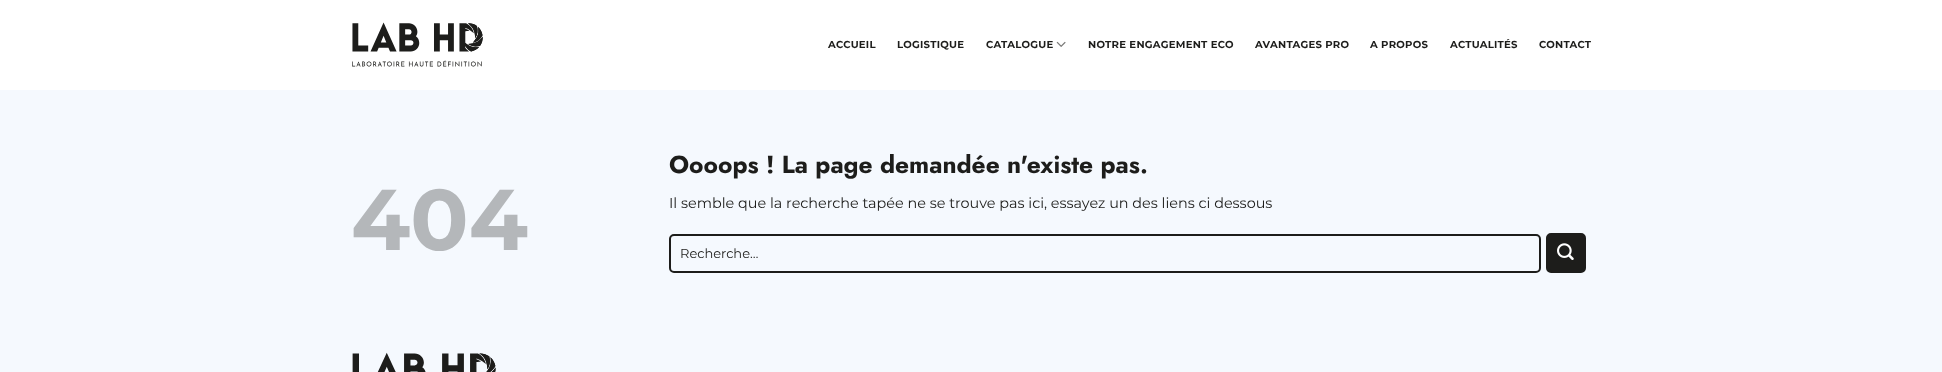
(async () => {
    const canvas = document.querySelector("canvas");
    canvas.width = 1942;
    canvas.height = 372;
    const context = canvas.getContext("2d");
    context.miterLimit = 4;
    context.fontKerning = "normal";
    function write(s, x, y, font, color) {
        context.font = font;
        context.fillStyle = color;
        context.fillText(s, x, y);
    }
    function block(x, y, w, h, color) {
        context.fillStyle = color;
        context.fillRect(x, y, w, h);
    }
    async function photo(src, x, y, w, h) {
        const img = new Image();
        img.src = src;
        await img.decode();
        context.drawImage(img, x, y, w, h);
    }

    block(0, 0, 1942, 372, "rgb(245, 249, 254)");
    block(0, 0, 1942, 90, "rgb(255, 255, 255)");
    await photo("media/1.png", 352, 22, 131, 45);
    context.letterSpacing = "0.25px";
    write("ACCUEIL", 828, 48, "bold 10.1px Montserrat", "rgb(29, 29, 27)");
    write("LOGISTIQUE", 897, 48, "bold 10.1px Montserrat", "rgb(29, 29, 27)");
    write("CATALOGUE", 986, 48, "bold 10.1px Montserrat", "rgb(29, 29, 27)");
    await photo("media/2.png", 1056, 41, 10, 6);
    write("NOTRE ENGAGEMENT ECO", 1088, 48, "bold 10.1px Montserrat", "rgb(29, 29, 27)");
    write("AVANTAGES PRO", 1255, 48, "bold 10.1px Montserrat", "rgb(29, 29, 27)");
    write("A PROPOS", 1370, 48, "bold 10.1px Montserrat", "rgb(29, 29, 27)");
    write("ACTUALITÉS", 1450, 48, "bold 10.1px Montserrat", "rgb(29, 29, 27)");
    write("CONTACT", 1539, 48, "bold 10.1px Montserrat", "rgb(29, 29, 27)");
    context.letterSpacing = "0px";
    write("404", 351, 250, "bold 86px Montserrat", "rgb(180, 183, 186)");
    write("Oooops ! La page demandée n'existe pas.", 669, 173, "bold 24.5px Jost", "rgb(29, 29, 27)");
    write("Il semble que la recherche tapée ne se trouve pas ici, essayez un des liens ci dessous", 669, 208, "14.4px Montserrat", "rgb(29, 29, 27)");
    context.beginPath();
    context.roundRect(670, 235, 870, 37, 4);
    context.strokeStyle = "rgb(29, 29, 27)";
    context.lineWidth = 2;
    context.stroke();
    write("Recherche…", 680, 258, "13px Montserrat", "rgb(29, 29, 27)");
    context.beginPath();
    context.roundRect(1547.5, 234.5, 37, 37, 3.5);
    context.fill();
    context.lineWidth = 3;
    context.stroke();
    await photo("media/3.png", 1557, 243, 17, 17);
    await photo("media/4.png", 352, 352, 144, 20);
})();
